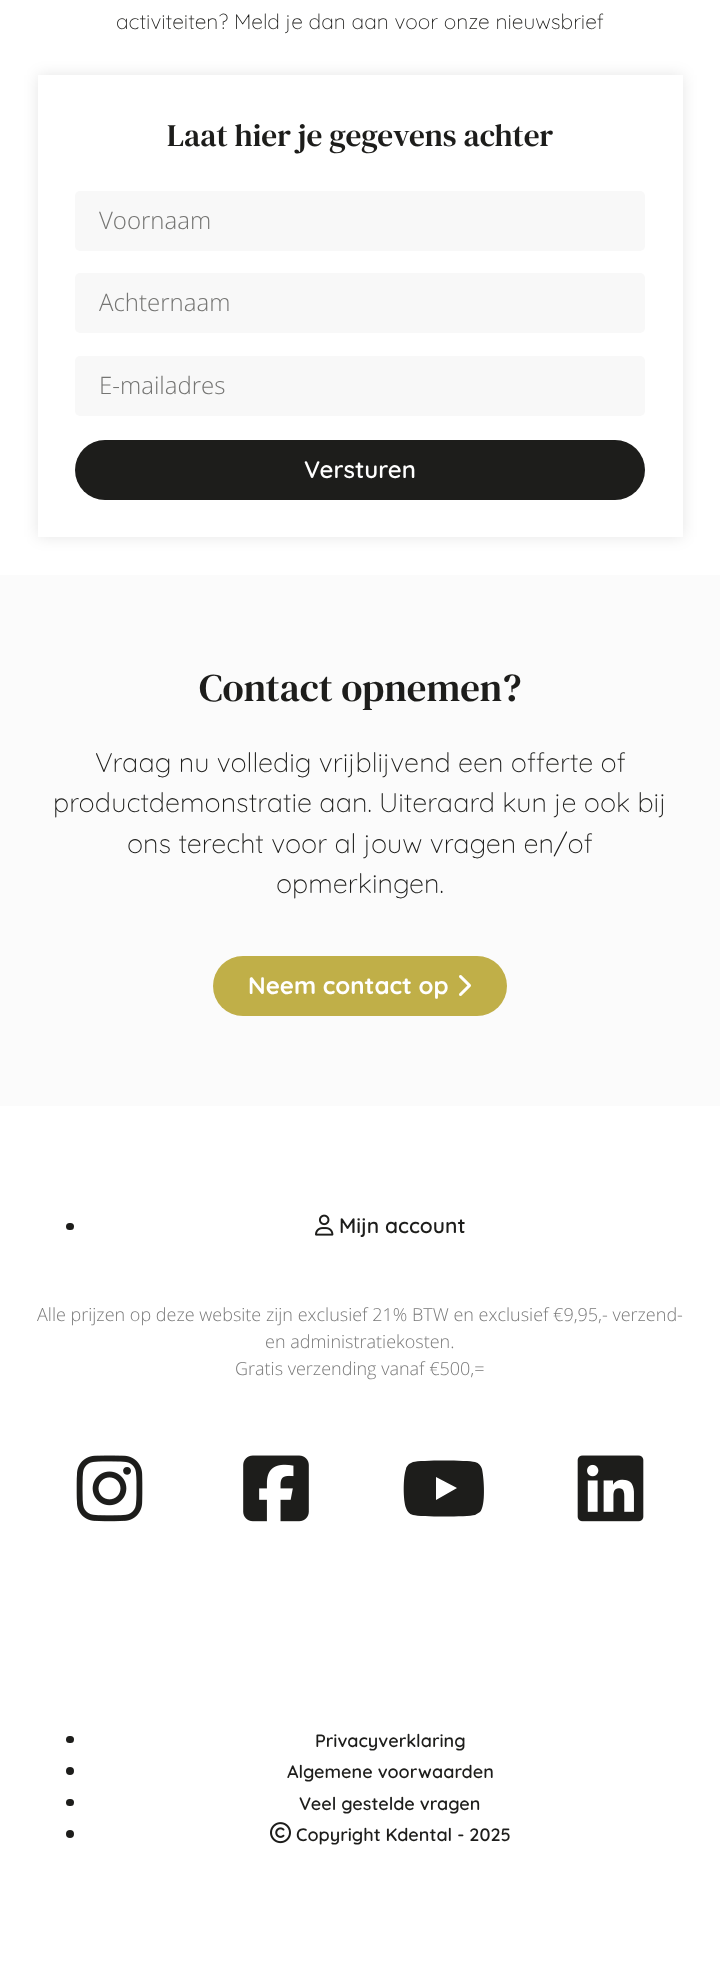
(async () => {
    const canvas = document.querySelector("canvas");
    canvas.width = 720;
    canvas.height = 1968;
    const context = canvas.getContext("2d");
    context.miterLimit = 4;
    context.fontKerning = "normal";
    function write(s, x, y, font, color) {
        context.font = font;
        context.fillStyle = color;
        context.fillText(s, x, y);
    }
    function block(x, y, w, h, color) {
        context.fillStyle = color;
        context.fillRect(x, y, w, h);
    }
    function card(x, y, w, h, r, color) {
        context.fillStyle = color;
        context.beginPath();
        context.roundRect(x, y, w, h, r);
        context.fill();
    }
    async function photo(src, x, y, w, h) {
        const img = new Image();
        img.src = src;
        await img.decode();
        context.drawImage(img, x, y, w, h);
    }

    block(0, 0, 720, 1968, "rgb(255, 255, 255)");
    write("activiteiten? Meld je dan aan voor onze nieuwsbrief", 116, 29, "300 21px Quicksand", "rgb(29, 29, 27)");
    context.save();
    context.beginPath();
    context.moveTo(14, 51);
    context.lineTo(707, 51);
    context.lineTo(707, 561);
    context.lineTo(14, 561);
    context.closePath();
    context.moveTo(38, 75);
    context.lineTo(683, 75);
    context.lineTo(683, 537);
    context.lineTo(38, 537);
    context.closePath();
    context.clip("evenodd");
    context.fillStyle = "rgba(0, 0, 0, 0.1)";
    context.filter = "blur(7.5px)";
    context.beginPath();
    context.rect(38, 75, 645, 462);
    context.fill();
    context.filter = "none";
    context.restore();
    write("Laat hier je gegevens achter", 167, 146, "31.5px DM Serif Text", "rgb(29, 29, 27)");
    card(75, 191, 570, 60, 5, "rgb(248, 248, 248)");
    write("Voornaam", 99, 229, "300 24px Open Sans", "rgb(117, 117, 115)");
    card(75, 273, 570, 60, 5, "rgb(248, 248, 248)");
    write("Achternaam", 99, 311, "300 24px Open Sans", "rgb(117, 117, 115)");
    card(75, 356, 570, 60, 5, "rgb(248, 248, 248)");
    write("E-mailadres", 99, 394, "300 24px Open Sans", "rgb(117, 117, 115)");
    card(75, 440, 570, 60, 30, "rgb(29, 29, 27)");
    write("Versturen", 304, 478, "600 24px Quicksand", "rgb(255, 255, 255)");
    block(0, 575, 720, 531, "rgb(251, 251, 251)");
    write("Contact opnemen?", 199, 701, "39px DM Serif Text", "rgb(29, 29, 27)");
    write("Vraag nu volledig vrijblijvend een offerte of", 95, 772, "300 27px Quicksand", "rgb(29, 29, 27)");
    write("productdemonstratie aan. Uiteraard kun je ook bij", 53, 812, "300 27px Quicksand", "rgb(29, 29, 27)");
    write("ons terecht voor al jouw vragen en/of", 127, 853, "300 27px Quicksand", "rgb(29, 29, 27)");
    write("opmerkingen.", 276, 893, "300 27px Quicksand", "rgb(29, 29, 27)");
    card(213, 956, 294, 60, 30, "rgb(192, 175, 72)");
    write("Neem contact op", 248, 994, "bold 24px Quicksand", "rgb(255, 255, 255)");
    await photo("media/1.png", 459, 975, 12, 21);
    card(66, 1223, 8, 7, 3.5, "rgb(29, 29, 27)");
    await photo("media/2.png", 315, 1214, 19, 22);
    write("Mijn account", 339, 1233, "600 21px Quicksand", "rgb(29, 29, 27)");
    write("Alle prijzen op deze website zijn exclusief 21% BTW en exclusief €9,95,- verzend-", 37, 1321, "300 18px Open Sans", "rgb(122, 122, 122)");
    write("en administratiekosten.", 265, 1348, "300 18px Open Sans", "rgb(122, 122, 122)");
    write("Gratis verzending vanaf €500,=", 235, 1375, "300 18px Open Sans", "rgb(122, 122, 122)");
    await photo("media/3.png", 76, 1455, 67, 67);
    await photo("media/4.png", 243, 1455, 66, 67);
    context.fillStyle = "rgb(29, 29, 27)";
    context.beginPath();
    context.moveTo(482, 1469);
    context.bezierCurveTo(481, 1466, 479, 1463, 475, 1462);
    context.bezierCurveTo(467, 1460, 421, 1460, 413, 1462);
    context.lineTo(409, 1464);
    context.bezierCurveTo(408, 1465, 406, 1467, 406, 1469);
    context.bezierCurveTo(403, 1477, 403, 1500, 406, 1508);
    context.bezierCurveTo(407, 1511, 409, 1514, 413, 1515);
    context.bezierCurveTo(421, 1517, 467, 1517, 475, 1515);
    context.lineTo(480, 1512);
    context.bezierCurveTo(486, 1506, 484, 1478, 482, 1469);
    context.closePath();
    context.moveTo(436, 1500);
    context.lineTo(436, 1477);
    context.lineTo(436, 1500);
    context.lineTo(436, 1477);
    context.lineTo(457, 1488);
    context.closePath();
    context.fill();
    await photo("media/5.png", 577, 1455, 67, 67);
    card(66, 1736, 8, 7, 3.5, "rgb(29, 29, 27)");
    write("Privacyverklaring", 315, 1747, "600 18px Quicksand", "rgb(29, 29, 27)");
    context.beginPath();
    context.arc(70, 1771, 4, 0, Math.PI * 2);
    context.fill();
    write("Algemene voorwaarden", 287, 1778, "600 18px Quicksand", "rgb(29, 29, 27)");
    card(66, 1799, 8, 7, 3.5, "rgb(29, 29, 27)");
    write("Veel gestelde vragen", 299, 1810, "600 18px Quicksand", "rgb(29, 29, 27)");
    context.beginPath();
    context.arc(70, 1834, 4, 0, Math.PI * 2);
    context.fill();
    await photo("media/6.png", 270, 1822, 21, 22);
    write("Copyright Kdental - 2025", 296, 1841, "600 18px Quicksand", "rgb(29, 29, 27)");
})();
